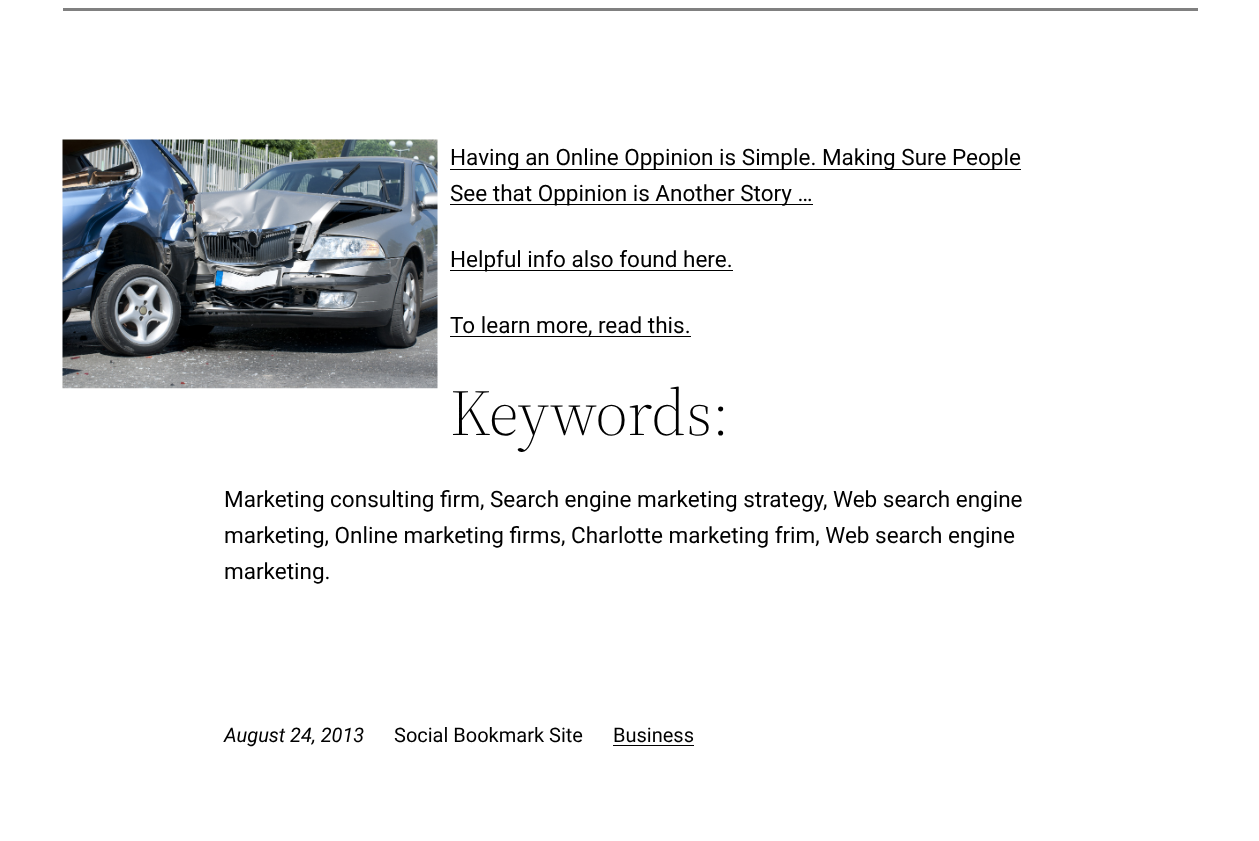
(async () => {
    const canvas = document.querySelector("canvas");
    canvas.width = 1259;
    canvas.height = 841;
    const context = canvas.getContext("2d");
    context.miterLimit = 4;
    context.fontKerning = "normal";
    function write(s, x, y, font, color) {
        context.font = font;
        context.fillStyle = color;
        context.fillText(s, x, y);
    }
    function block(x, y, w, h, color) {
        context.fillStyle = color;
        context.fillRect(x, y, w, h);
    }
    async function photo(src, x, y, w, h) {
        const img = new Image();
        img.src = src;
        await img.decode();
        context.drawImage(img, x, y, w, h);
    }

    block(0, 0, 1259, 841, "rgb(255, 255, 255)");
    block(63, 8, 1135, 3, "rgb(128, 128, 128)");
    await photo("media/1.png", 62, 139, 376, 250);
    block(450, 169, 571, 1, "rgb(0, 0, 0)");
    write("Having an Online Oppinion is Simple. Making Sure People", 450, 165, "22.5px Roboto", "rgb(0, 0, 0)");
    block(450, 204, 363, 1, "rgb(0, 0, 0)");
    write("See that Oppinion is Another Story …", 450, 201, "22.5px Roboto", "rgb(0, 0, 0)");
    block(450, 270, 283, 1, "rgb(0, 0, 0)");
    write("Helpful info also found here.", 450, 267, "22.5px Roboto", "rgb(0, 0, 0)");
    block(450, 336, 241, 1, "rgb(0, 0, 0)");
    write("To learn more, read this.", 450, 333, "22.5px Roboto", "rgb(0, 0, 0)");
    write("Keywords:", 450, 435, "300 65px 'Source Serif 4'", "rgb(0, 0, 0)");
    write("Marketing consulting firm, Search engine marketing strategy, Web search engine", 224, 507, "22.5px Roboto", "rgb(0, 0, 0)");
    write("marketing, Online marketing firms, Charlotte marketing frim, Web search engine", 224, 543, "22.5px Roboto", "rgb(0, 0, 0)");
    write("marketing.", 224, 579, "22.5px Roboto", "rgb(0, 0, 0)");
    write("August 24, 2013", 224, 742, "italic 20px Roboto", "rgb(0, 0, 0)");
    write("Social Bookmark Site", 394, 742, "20px Roboto", "rgb(0, 0, 0)");
    write("Business", 613, 742, "20px Roboto", "rgb(0, 0, 0)");
    block(613, 745, 81, 1, "rgb(0, 0, 0)");
})();
